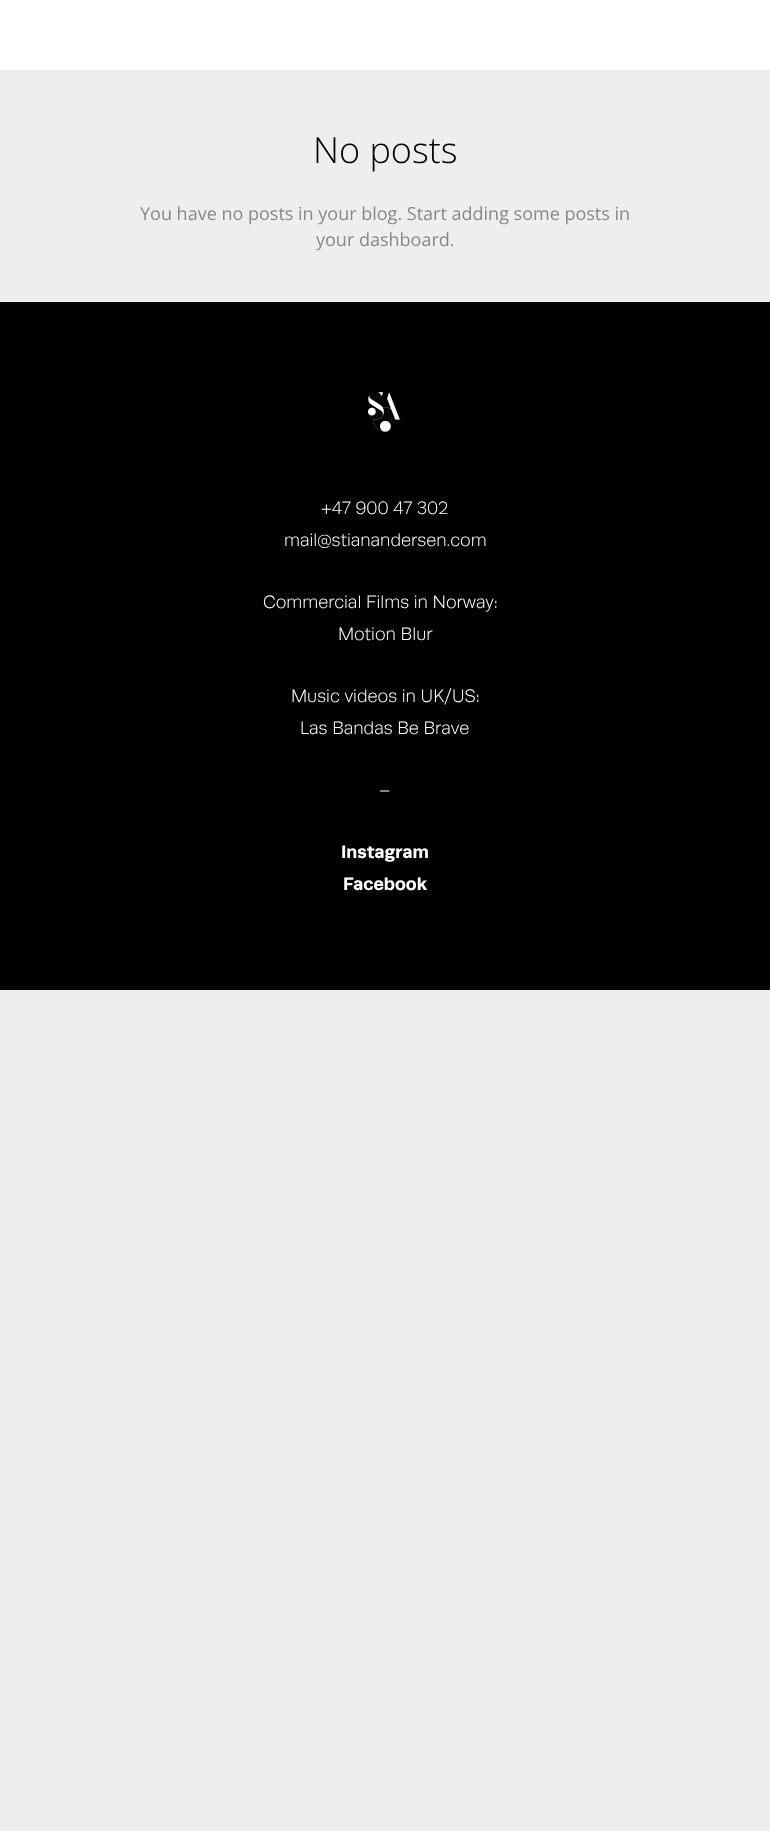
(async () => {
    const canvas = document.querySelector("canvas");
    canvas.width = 770;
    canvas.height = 1831;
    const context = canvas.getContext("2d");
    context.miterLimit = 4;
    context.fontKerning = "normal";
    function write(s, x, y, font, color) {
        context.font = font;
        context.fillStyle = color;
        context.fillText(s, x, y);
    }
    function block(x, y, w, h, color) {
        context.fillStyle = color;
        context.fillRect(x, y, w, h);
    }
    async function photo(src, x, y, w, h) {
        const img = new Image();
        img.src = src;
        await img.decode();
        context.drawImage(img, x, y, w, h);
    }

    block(0, 0, 770, 1831, "rgb(238, 238, 238)");
    block(0, 0, 770, 70, "rgb(255, 255, 255)");
    write("No posts", 313, 163, "300 36px Open Sans", "rgb(0, 0, 0)");
    write("You have no posts in your blog. Start adding some posts in", 140, 220, "18px Open Sans", "rgb(136, 136, 136)");
    write("your dashboard.", 316, 246, "18px Open Sans", "rgb(136, 136, 136)");
    block(0, 302, 770, 688, "rgb(0, 0, 0)");
    await photo("media/1.png", 368, 392, 33, 40);
    write("+47 900 47 302", 321, 514, "300 18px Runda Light", "rgb(255, 255, 255)");
    write("mail@stianandersen.com", 284, 546, "300 18px Runda Light", "rgb(255, 255, 255)");
    write("Commercial Films in Norway:", 263, 608, "300 18px Runda Light", "rgb(255, 255, 255)");
    write("Motion Blur", 338, 640, "300 18px Runda Light", "rgb(255, 255, 255)");
    write("Music videos in UK/US:", 291, 702, "300 18px Runda Light", "rgb(255, 255, 255)");
    write("Las Bandas Be Brave", 300, 734, "300 18px Runda Light", "rgb(255, 255, 255)");
    write("–", 379, 796, "300 18px Runda Light", "rgb(255, 255, 255)");
    write("Instagram", 341, 858, "bold 18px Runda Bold", "rgb(255, 255, 255)");
    write("Facebook", 343, 890, "bold 18px Runda Bold", "rgb(255, 255, 255)");
})();
